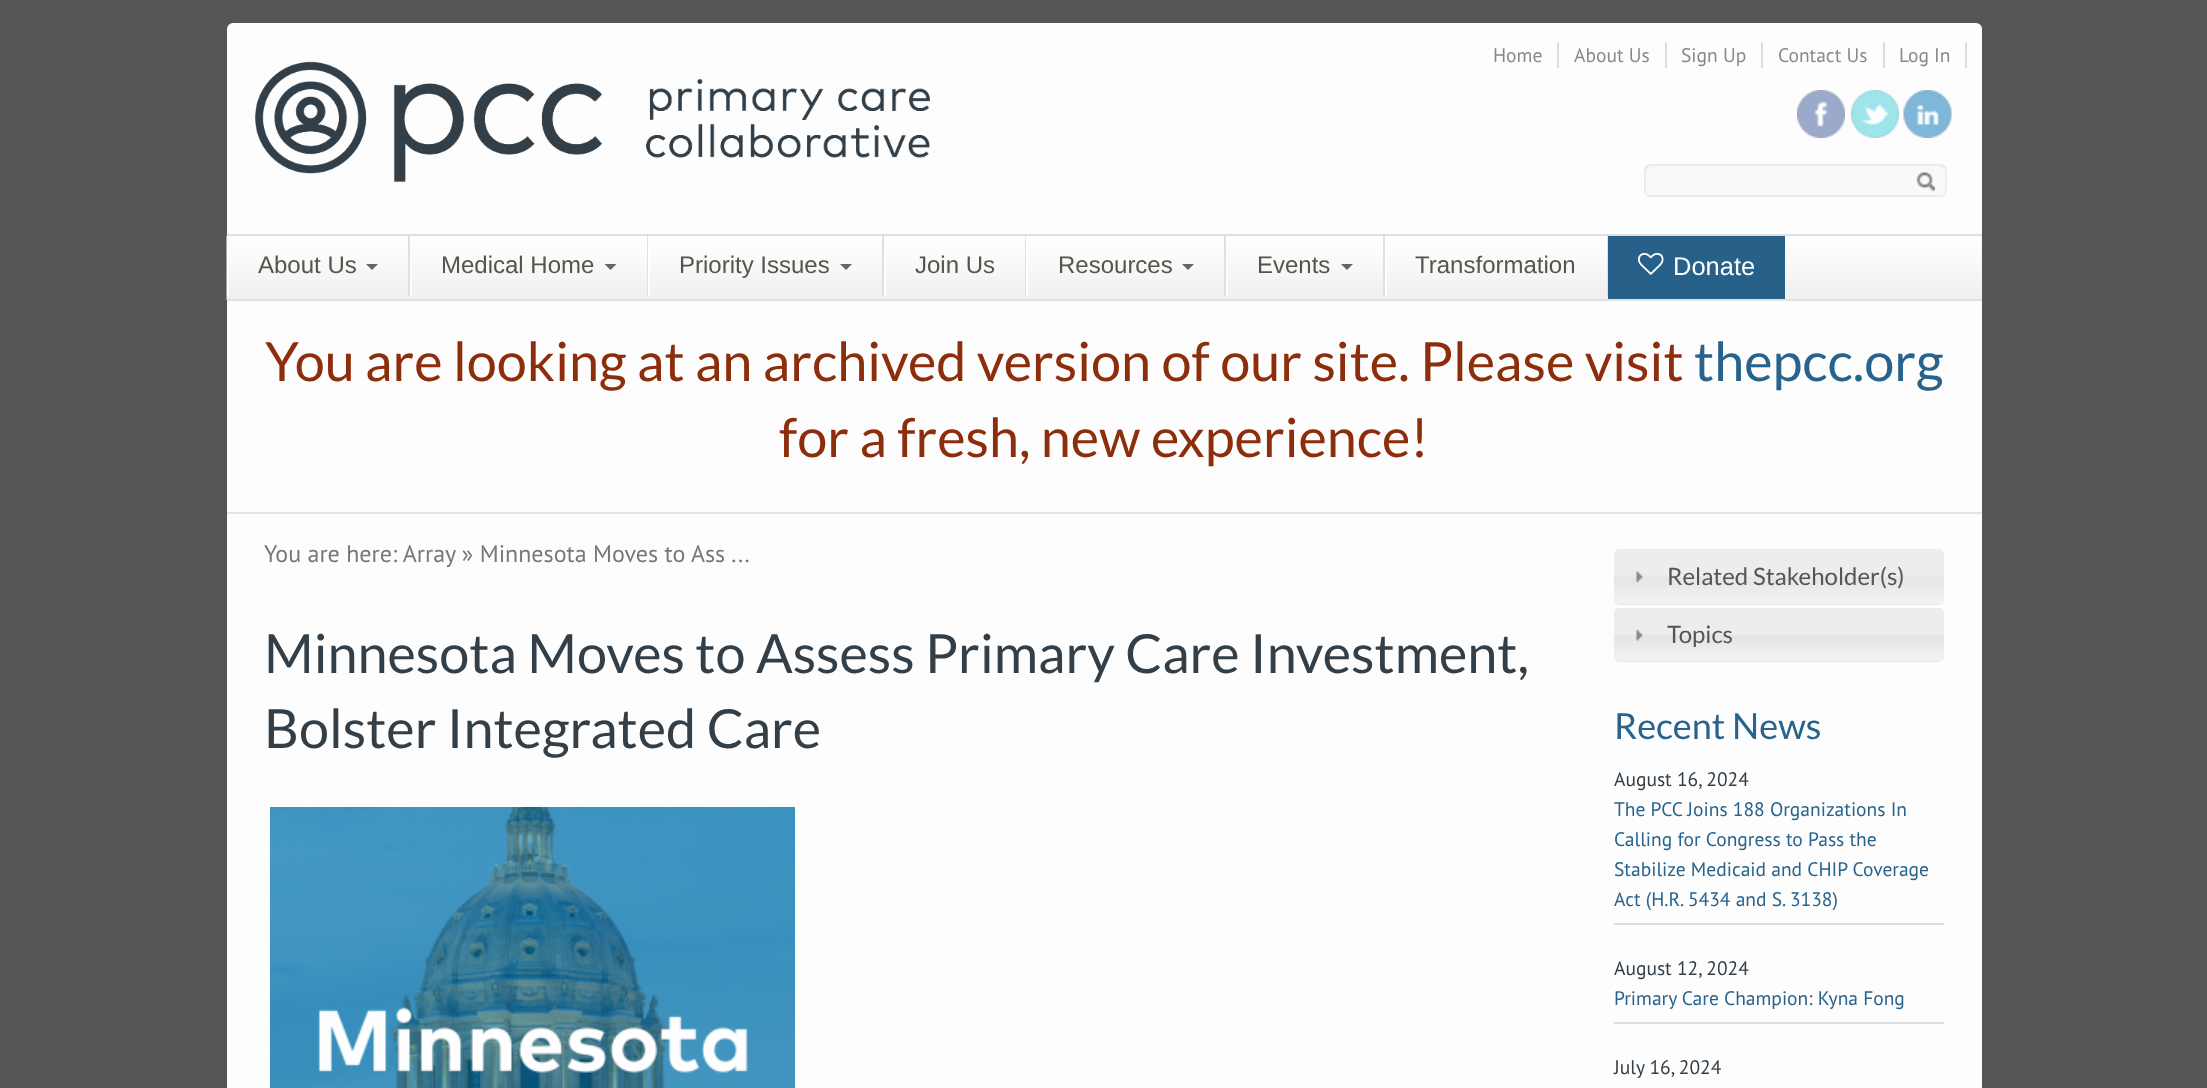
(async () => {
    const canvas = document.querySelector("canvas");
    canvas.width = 2207;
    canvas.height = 1088;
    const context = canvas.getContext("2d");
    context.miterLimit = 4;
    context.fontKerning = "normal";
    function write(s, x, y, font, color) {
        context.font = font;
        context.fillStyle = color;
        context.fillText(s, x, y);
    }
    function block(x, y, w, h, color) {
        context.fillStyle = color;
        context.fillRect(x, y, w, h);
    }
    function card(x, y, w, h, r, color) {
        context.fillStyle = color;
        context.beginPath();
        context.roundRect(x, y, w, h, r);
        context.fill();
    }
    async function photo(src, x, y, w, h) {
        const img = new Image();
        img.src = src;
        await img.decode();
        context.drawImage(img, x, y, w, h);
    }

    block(0, 0, 2207, 1088, "rgb(85, 85, 85)");
    card(227, 23, 1755, 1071, 6, "rgb(253, 253, 253)");
    block(1557, 42, 2, 26, "rgb(221, 221, 221)");
    write("Home", 1493, 62, "19.5px PT Sans", "rgb(136, 136, 136)");
    block(1665, 42, 2, 26, "rgb(221, 221, 221)");
    write("About Us", 1574, 62, "19.5px PT Sans", "rgb(136, 136, 136)");
    block(1761, 42, 2, 26, "rgb(221, 221, 221)");
    write("Sign Up", 1681, 62, "19.5px PT Sans", "rgb(136, 136, 136)");
    block(1883, 42, 2, 26, "rgb(221, 221, 221)");
    write("Contact Us", 1778, 62, "19.5px PT Sans", "rgb(136, 136, 136)");
    block(1965, 42, 2, 26, "rgb(221, 221, 221)");
    write("Log In", 1899, 62, "19.5px PT Sans", "rgb(136, 136, 136)");
    await photo("media/1.png", 255, 61, 675, 122);
    await photo("media/2.png", 1797, 90, 48, 48);
    await photo("media/3.png", 1851, 90, 48, 48);
    await photo("media/4.png", 1903, 90, 49, 48);
    card(1644, 164, 303, 33, 6, "rgb(249, 249, 249)");
    context.fillStyle = "rgb(204, 204, 204)";
    context.beginPath();
    context.moveTo(1650, 166);
    context.lineTo(1941, 166);
    context.bezierCurveTo(1943, 166, 1946, 169, 1946, 171);
    context.lineTo(1946, 170);
    context.bezierCurveTo(1946, 167, 1944, 165, 1941, 165);
    context.lineTo(1651, 165);
    context.bezierCurveTo(1648, 165, 1646, 167, 1646, 170);
    context.lineTo(1646, 171);
    context.bezierCurveTo(1646, 169, 1648, 166, 1650, 166);
    context.closePath();
    context.fill();
    context.beginPath();
    context.roundRect(1645, 165, 301, 31, 5);
    context.strokeStyle = "rgb(236, 236, 236)";
    context.lineWidth = 2;
    context.stroke();
    await photo("media/5.png", 1916, 172, 19, 20);
    block(1981, 236, 1, 63, "rgb(238, 238, 238)");
    await photo("media/6.png", 226, 235, 1756, 65);
    block(227, 234, 1755, 2, "rgb(224, 224, 224)");
    block(227, 299, 1755, 2, "rgb(224, 224, 224)");
    block(408, 236, 2, 60, "rgb(224, 224, 224)");
    block(227, 246, 2, 50, "rgb(255, 255, 255)");
    write("About Us", 258, 273, "24px Liberation Sans", "rgb(85, 85, 74)");
    context.fillStyle = "rgb(102, 102, 102)";
    context.beginPath();
    context.moveTo(366, 264);
    context.lineTo(378, 264);
    context.lineTo(372, 270);
    context.closePath();
    context.fill();
    block(647, 236, 1, 60, "rgb(224, 224, 224)");
    block(410, 246, 2, 50, "rgb(255, 255, 255)");
    write("Medical Home", 441, 273, "24px Liberation Sans", "rgb(85, 85, 74)");
    context.fillStyle = "rgb(102, 102, 102)";
    context.beginPath();
    context.moveTo(604.5, 264);
    context.lineTo(616.5, 264);
    context.lineTo(610.5, 270);
    context.closePath();
    context.fill();
    block(882, 236, 2, 60, "rgb(224, 224, 224)");
    block(648, 246, 2, 50, "rgb(255, 255, 255)");
    write("Priority Issues", 679, 273, "24px Liberation Sans", "rgb(85, 85, 74)");
    context.fillStyle = "rgb(102, 102, 102)";
    context.beginPath();
    context.moveTo(840, 264);
    context.lineTo(852, 264);
    context.lineTo(846, 270);
    context.closePath();
    context.fill();
    block(1025, 236, 1, 60, "rgb(224, 224, 224)");
    block(884, 246, 2, 50, "rgb(255, 255, 255)");
    write("Join Us", 915, 273, "24px Liberation Sans", "rgb(85, 85, 74)");
    block(1224, 236, 2, 60, "rgb(224, 224, 224)");
    block(1026, 246, 2, 50, "rgb(255, 255, 255)");
    write("Resources", 1058, 273, "24px Liberation Sans", "rgb(85, 85, 74)");
    context.fillStyle = "rgb(102, 102, 102)";
    context.beginPath();
    context.moveTo(1182, 264);
    context.lineTo(1194, 264);
    context.lineTo(1188, 270);
    context.closePath();
    context.fill();
    block(1383, 236, 2, 60, "rgb(224, 224, 224)");
    block(1226, 246, 2, 50, "rgb(255, 255, 255)");
    write("Events", 1257, 273, "24px Liberation Sans", "rgb(85, 85, 74)");
    context.fillStyle = "rgb(102, 102, 102)";
    context.beginPath();
    context.moveTo(1341, 264);
    context.lineTo(1353, 264);
    context.lineTo(1347, 270);
    context.closePath();
    context.fill();
    block(1607, 236, 1, 60, "rgb(224, 224, 224)");
    block(1385, 246, 2, 50, "rgb(255, 255, 255)");
    write("Transformation", 1415, 273, "24px Liberation Sans", "rgb(85, 85, 74)");
    block(1608, 236, 177, 63, "rgb(39, 97, 137)");
    await photo("media/7.png", 1638, 253, 26, 22);
    write("Donate", 1673, 275, "25.5px Liberation Sans", "rgb(255, 255, 255)");
    write("You are looking at an archived version of our site. Please visit", 265, 381, "54px Lato", "rgb(140, 46, 11)");
    write("thepcc.org", 1694, 381, "54px Lato", "rgb(39, 99, 140)");
    write("for a fresh, new experience!", 779, 457, "54px Lato", "rgb(140, 46, 11)");
    block(227, 512, 1755, 2, "rgb(226, 226, 226)");
    write("You are here: Array » Minnesota Moves to Ass ...", 264, 562, "24px PT Sans", "rgb(119, 119, 119)");
    write("Minnesota Moves to Assess Primary Care Investment,", 264, 673, "54px Lato", "rgb(51, 63, 72)");
    write("Bolster Integrated Care", 264, 748, "54px Lato", "rgb(51, 63, 72)");
    await photo("media/8.png", 270, 807, 525, 281);
    card(1614, 549, 330, 56, 6, "rgb(230, 230, 230)");
    await photo("media/9.png", 1614, 549, 330, 55);
    await photo("media/10.png", 1636, 571, 7, 12);
    write("Related Stakeholder(s)", 1667, 585, "24px Lato", "rgb(85, 85, 85)");
    card(1614, 608, 330, 54, 6, "rgb(230, 230, 230)");
    await photo("media/11.png", 1614, 608, 330, 53);
    await photo("media/12.png", 1636, 629, 7, 12);
    write("Topics", 1667, 643, "24px Lato", "rgb(85, 85, 85)");
    write("Recent News", 1614, 739, "36px Lato", "rgb(39, 99, 140)");
    block(1614, 923, 330, 2, "rgb(221, 221, 221)");
    write("August 16, 2024", 1614, 786, "19.5px PT Sans", "rgb(51, 63, 72)");
    write("The PCC Joins 188 Organizations In", 1614, 816, "19.5px PT Sans", "rgb(39, 99, 140)");
    write("Calling for Congress to Pass the", 1614, 846, "19.5px PT Sans", "rgb(39, 99, 140)");
    write("Stabilize Medicaid and CHIP Coverage", 1614, 876, "19.5px PT Sans", "rgb(39, 99, 140)");
    write("Act (H.R. 5434 and S. 3138)", 1614, 906, "19.5px PT Sans", "rgb(39, 99, 140)");
    block(1614, 1022, 330, 2, "rgb(221, 221, 221)");
    write("August 12, 2024", 1614, 975, "19.5px PT Sans", "rgb(51, 63, 72)");
    write("Primary Care Champion: Kyna Fong", 1614, 1005, "19.5px PT Sans", "rgb(39, 99, 140)");
    write("July 16, 2024", 1614, 1074, "19.5px PT Sans", "rgb(51, 63, 72)");
})();
